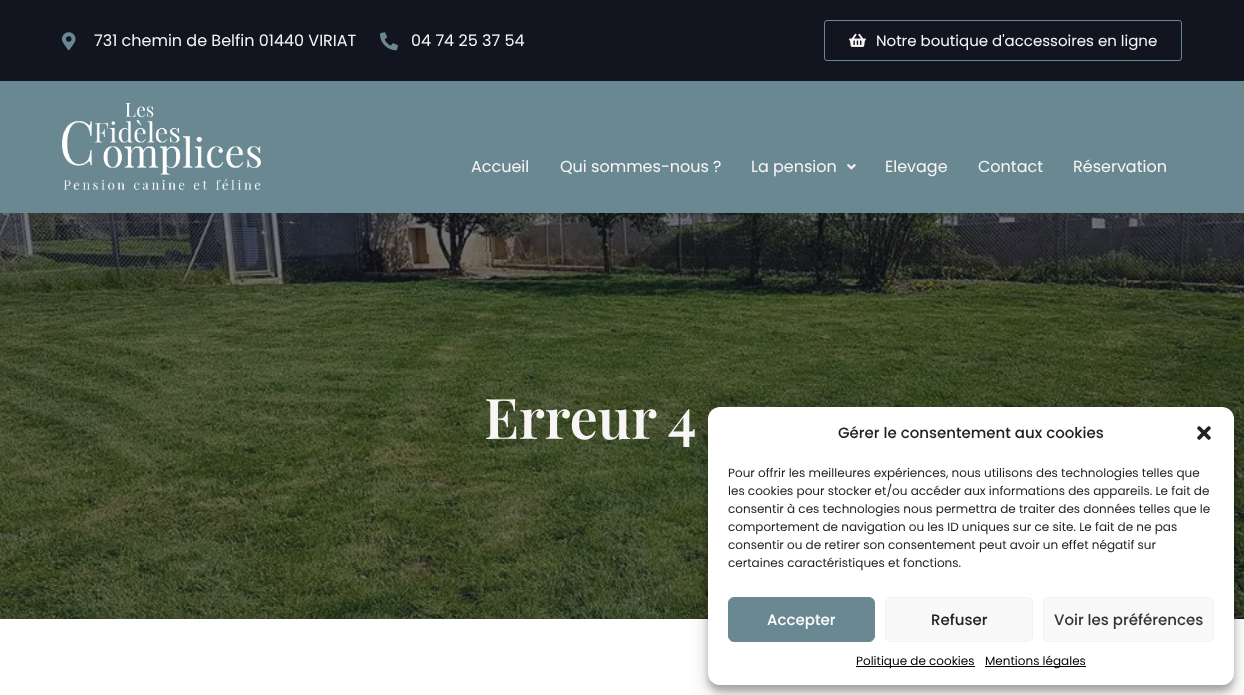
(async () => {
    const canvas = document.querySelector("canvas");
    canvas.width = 1244;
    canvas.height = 695;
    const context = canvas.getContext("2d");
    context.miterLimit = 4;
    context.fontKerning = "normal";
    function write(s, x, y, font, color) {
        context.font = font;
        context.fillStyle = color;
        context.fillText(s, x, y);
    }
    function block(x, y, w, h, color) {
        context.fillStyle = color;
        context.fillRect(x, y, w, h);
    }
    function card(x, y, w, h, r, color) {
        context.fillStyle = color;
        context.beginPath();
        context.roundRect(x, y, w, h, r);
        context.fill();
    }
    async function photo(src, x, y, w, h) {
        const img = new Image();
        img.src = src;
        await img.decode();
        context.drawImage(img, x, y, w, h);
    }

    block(0, 0, 1244, 695, "rgb(255, 255, 255)");
    block(0, 0, 1244, 81, "rgb(18, 20, 32)");
    await photo("media/1.png", 62, 32, 14, 19);
    write("731 chemin de Belfin 01440 VIRIAT", 94, 46, "16px Poppins", "rgb(248, 246, 244)");
    await photo("media/2.png", 380, 32, 18, 19);
    write("04 74 25 37 54", 411, 46, "16px Poppins", "rgb(248, 246, 244)");
    context.beginPath();
    context.roundRect(824.5, 20.5, 357, 40, 2.5);
    context.strokeStyle = "rgb(105, 136, 145)";
    context.stroke();
    await photo("media/3.png", 849, 33, 17, 14);
    write("Notre boutique d'accessoires en ligne", 876, 46, "15px Poppins", "rgb(248, 246, 244)");
    block(0, 81, 1244, 132, "rgb(105, 136, 145)");
    await photo("media/4.png", 62, 103, 199, 87);
    write("Accueil", 471, 172, "16px Poppins", "rgb(248, 246, 244)");
    write("Qui sommes-nous ?", 560, 172, "16px Poppins", "rgb(248, 246, 244)");
    write("La pension", 751, 172, "16px Poppins", "rgb(248, 246, 244)");
    await photo("media/5.png", 847, 164, 9, 6);
    write("Elevage", 885, 172, "16px Poppins", "rgb(248, 246, 244)");
    write("Contact", 978, 172, "16px Poppins", "rgb(248, 246, 244)");
    write("Réservation", 1073, 172, "16px Poppins", "rgb(248, 246, 244)");
    await photo("media/6.png", 0, 213, 1244, 406);
    write("Erreur 4", 484, 439, "600 56px Playfair Display", "rgb(248, 246, 244)");
    context.fillStyle = "rgba(0, 0, 0, 0.23)";
    context.filter = "blur(3px)";
    context.beginPath();
    context.roundRect(708, 413, 526, 278, 12);
    context.fill();
    context.filter = "none";
    context.fillStyle = "rgba(0, 0, 0, 0.19)";
    context.filter = "blur(10px)";
    context.beginPath();
    context.roundRect(708, 417, 526, 278, 12);
    context.fill();
    context.filter = "none";
    card(708, 407, 526, 278, 12, "rgb(255, 255, 255)");
    write("Gérer le consentement aux cookies", 838, 438, "500 15px Poppins", "rgb(34, 34, 34)");
    await photo("media/7.png", 1197, 426, 14, 14);
    write("Pour offrir les meilleures expériences, nous utilisons des technologies telles que", 728, 477, "12px Poppins", "rgb(34, 34, 34)");
    write("les cookies pour stocker et/ou accéder aux informations des appareils. Le fait de", 728, 495, "12px Poppins", "rgb(34, 34, 34)");
    write("consentir à ces technologies nous permettra de traiter des données telles que le", 728, 513, "12px Poppins", "rgb(34, 34, 34)");
    write("comportement de navigation ou les ID uniques sur ce site. Le fait de ne pas", 728, 531, "12px Poppins", "rgb(34, 34, 34)");
    write("consentir ou de retirer son consentement peut avoir un effet négatif sur", 728, 549, "12px Poppins", "rgb(34, 34, 34)");
    write("certaines caractéristiques et fonctions.", 728, 567, "12px Poppins", "rgb(34, 34, 34)");
    context.fillStyle = "rgb(105, 136, 145)";
    context.beginPath();
    context.roundRect(728.5, 597.5, 146, 44, 5.5);
    context.fill();
    context.stroke();
    write("Accepter", 767, 625, "500 15px Poppins", "rgb(255, 255, 255)");
    context.fillStyle = "rgb(249, 249, 249)";
    context.beginPath();
    context.roundRect(885.5, 597.5, 147, 44, 5.5);
    context.fill();
    context.strokeStyle = "rgb(242, 242, 242)";
    context.stroke();
    write("Refuser", 931, 625, "500 15px Poppins", "rgb(34, 34, 34)");
    context.fillStyle = "rgb(249, 249, 249)";
    context.beginPath();
    context.roundRect(1043.5, 597.5, 170, 44, 5.5);
    context.fill();
    context.stroke();
    write("Voir les préférences", 1054, 625, "500 15px Poppins", "rgb(51, 51, 51)");
    block(856, 666, 119, 1, "rgb(0, 0, 0)");
    write("Politique de cookies", 856, 665, "12px Poppins", "rgb(0, 0, 0)");
    block(985, 666, 101, 1, "rgb(0, 0, 0)");
    write("Mentions légales", 985, 665, "12px Poppins", "rgb(0, 0, 0)");
})();
